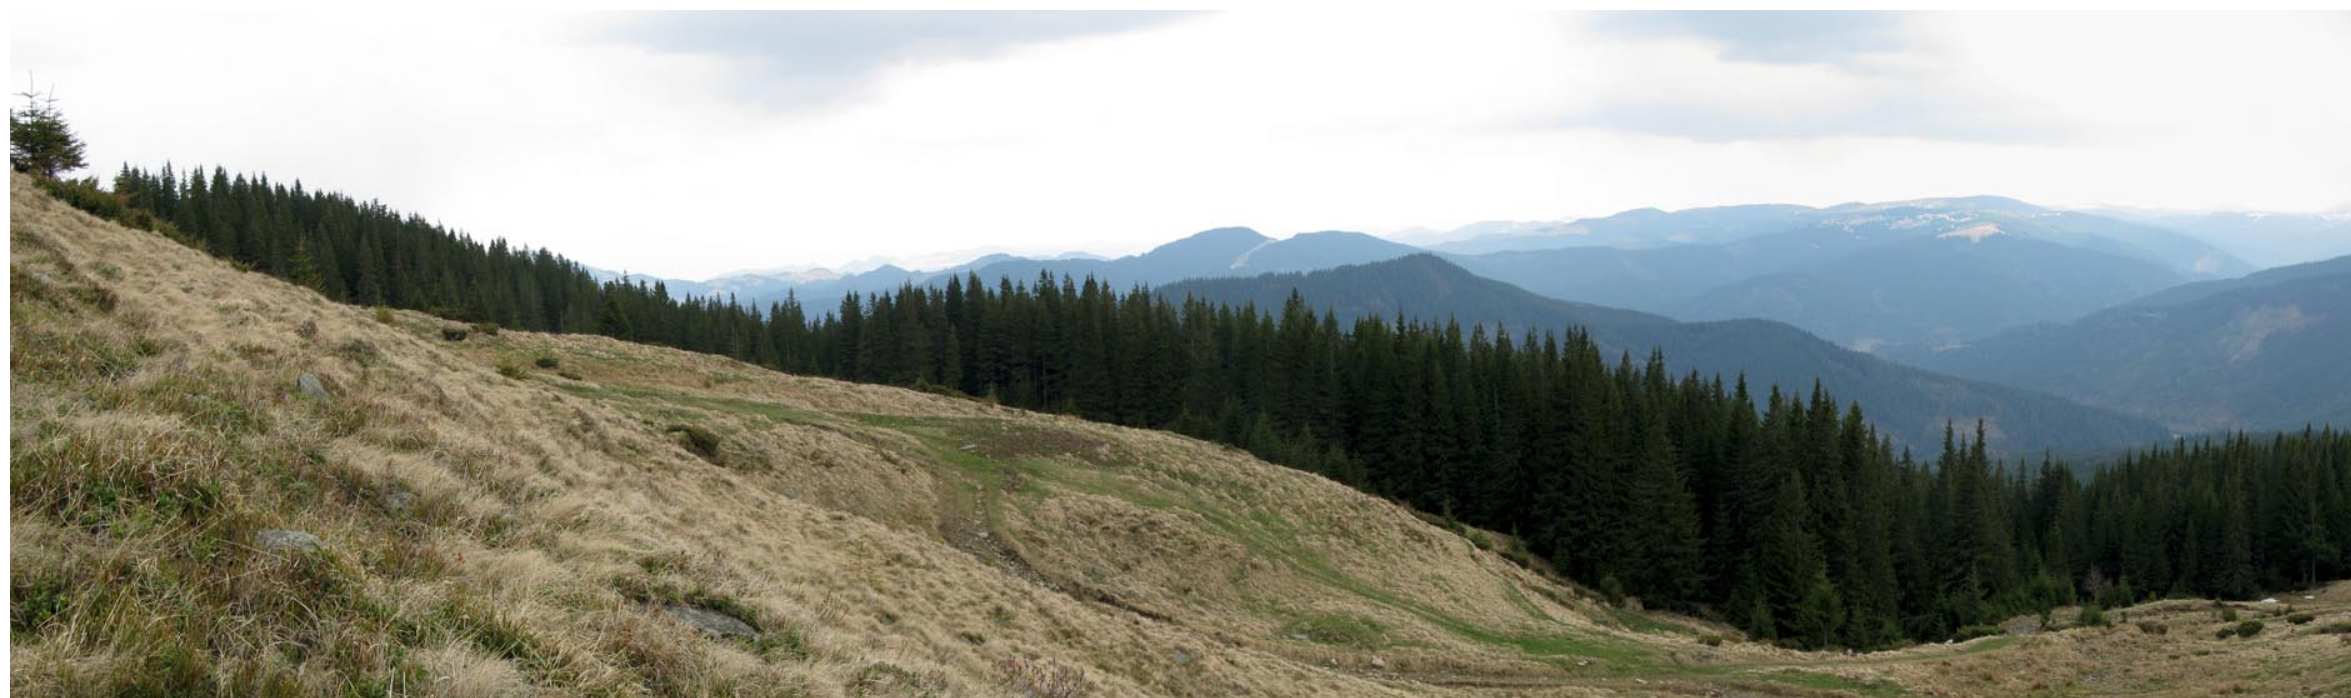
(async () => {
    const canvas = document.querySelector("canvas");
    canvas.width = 2351;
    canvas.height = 698;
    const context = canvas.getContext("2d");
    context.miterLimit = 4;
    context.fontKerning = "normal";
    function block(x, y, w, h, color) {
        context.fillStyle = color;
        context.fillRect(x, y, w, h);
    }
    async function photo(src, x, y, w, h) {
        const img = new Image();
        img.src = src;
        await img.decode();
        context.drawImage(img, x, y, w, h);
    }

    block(0, 0, 2351, 698, "rgb(255, 255, 255)");
    await photo("media/1.png", 10, 10, 2341, 688);
})();
